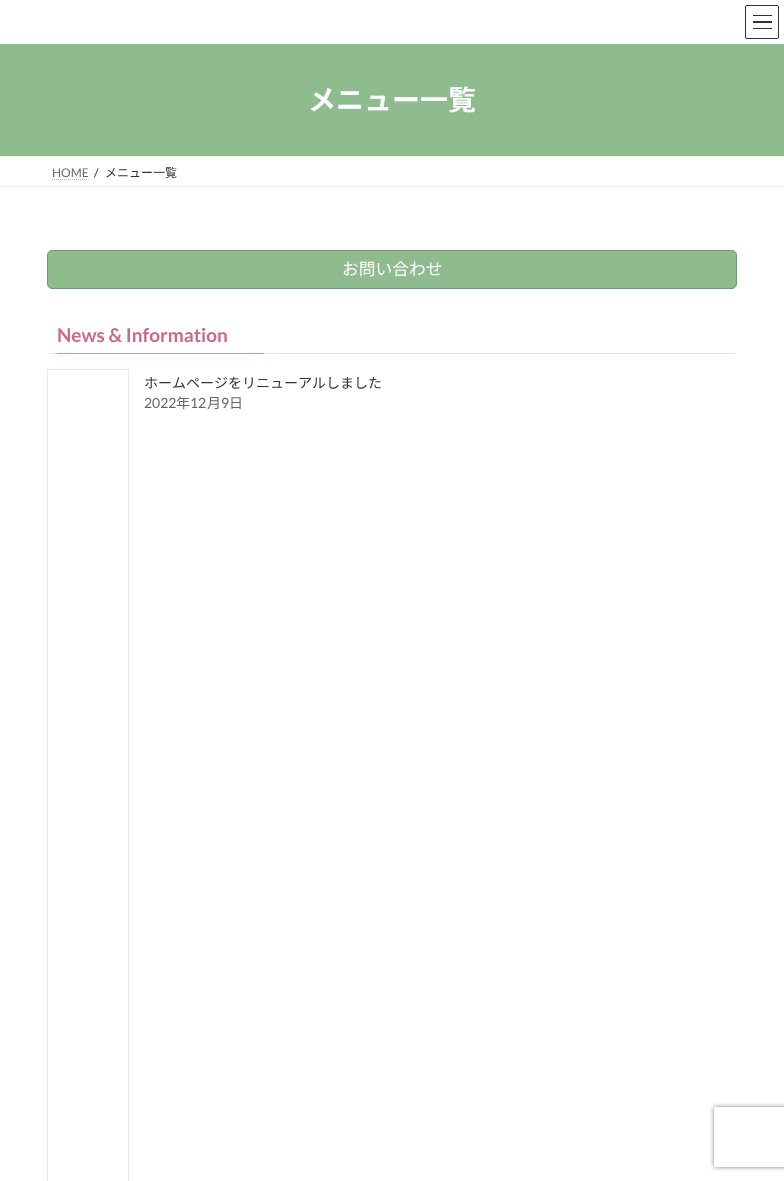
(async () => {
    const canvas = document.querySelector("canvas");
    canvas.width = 784;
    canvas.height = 1181;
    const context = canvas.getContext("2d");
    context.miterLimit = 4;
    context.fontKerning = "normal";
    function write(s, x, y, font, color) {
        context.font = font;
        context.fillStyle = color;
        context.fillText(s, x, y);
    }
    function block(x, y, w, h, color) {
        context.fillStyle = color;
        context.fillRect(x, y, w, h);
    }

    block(0, 0, 784, 1181, "rgb(255, 255, 255)");
    block(753, 15, 19, 1, "rgb(51, 51, 51)");
    block(753, 21, 19, 2, "rgb(51, 51, 51)");
    block(753, 28, 19, 1, "rgb(51, 51, 51)");
    context.beginPath();
    context.roundRect(745.5, 5.5, 33, 33, 1.5);
    context.strokeStyle = "rgb(51, 51, 51)";
    context.stroke();
    block(0, 44, 784, 112, "rgb(143, 188, 143)");
    write("メニュー一覧", 308, 110, "bold 28px Noto Sans JP", "rgb(255, 255, 255)");
    block(0, 156, 784, 1, "rgb(240, 240, 240)");
    block(0, 186, 784, 1, "rgb(240, 240, 240)");
    write("HOME", 52, 177, "12px Lato", "rgb(102, 102, 102)");
    context.beginPath();
    context.moveTo(52, 179.5);
    context.lineTo(88.5, 179.5);
    context.strokeStyle = "rgb(179, 179, 179)";
    context.setLineDash([1, 1]);
    context.stroke();
    write("/", 94, 177, "12px Lato", "rgb(51, 51, 51)");
    write("メニュー一覧", 105, 177, "12px Noto Sans JP", "rgb(51, 51, 51)");
    context.fillStyle = "rgb(143, 188, 143)";
    context.beginPath();
    context.roundRect(47.5, 250.5, 689, 38, 4.5);
    context.fill();
    context.strokeStyle = "rgb(114, 150, 114)";
    context.setLineDash([]);
    context.stroke();
    write("お問い合わせ", 342, 275, "16.75px Noto Sans JP", "rgb(255, 255, 255)");
    block(50, 353, 685, 1, "rgb(224, 224, 224)");
    write("News & Information", 57, 342, "bold 19px Lato", "rgb(204, 104, 137)");
    block(57, 353, 207, 1, "rgb(143, 188, 143)");
    context.strokeStyle = "rgb(229, 229, 229)";
    context.strokeRect(47.5, 369.5, 81, 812);
    write("ホームページをリニューアルしました", 144, 388, "14px Noto Sans JP", "rgb(51, 51, 51)");
    write("2022", 144, 408, "14px Lato", "rgb(102, 102, 102)");
    write("年", 176, 408, "14px Noto Sans JP", "rgb(102, 102, 102)");
    write("12", 190, 408, "14px Lato", "rgb(102, 102, 102)");
    write("月", 207, 408, "14px Noto Sans JP", "rgb(102, 102, 102)");
    write("9", 221, 408, "14px Lato", "rgb(102, 102, 102)");
    write("日", 229, 408, "14px Noto Sans JP", "rgb(102, 102, 102)");
    context.save();
    context.beginPath();
    context.moveTo(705, 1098);
    context.lineTo(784, 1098);
    context.lineTo(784, 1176);
    context.lineTo(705, 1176);
    context.closePath();
    context.moveTo(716, 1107);
    context.lineTo(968, 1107);
    context.bezierCurveTo(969, 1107, 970, 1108, 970, 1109);
    context.lineTo(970, 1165);
    context.bezierCurveTo(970, 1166, 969, 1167, 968, 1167);
    context.lineTo(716, 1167);
    context.bezierCurveTo(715, 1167, 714, 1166, 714, 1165);
    context.lineTo(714, 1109);
    context.bezierCurveTo(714, 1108, 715, 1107, 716, 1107);
    context.closePath();
    context.clip("evenodd");
    context.fillStyle = "rgb(128, 128, 128)";
    context.filter = "blur(2.5px)";
    context.beginPath();
    context.roundRect(714, 1107, 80, 60, 2);
    context.fill();
    context.filter = "none";
    context.restore();
})();
